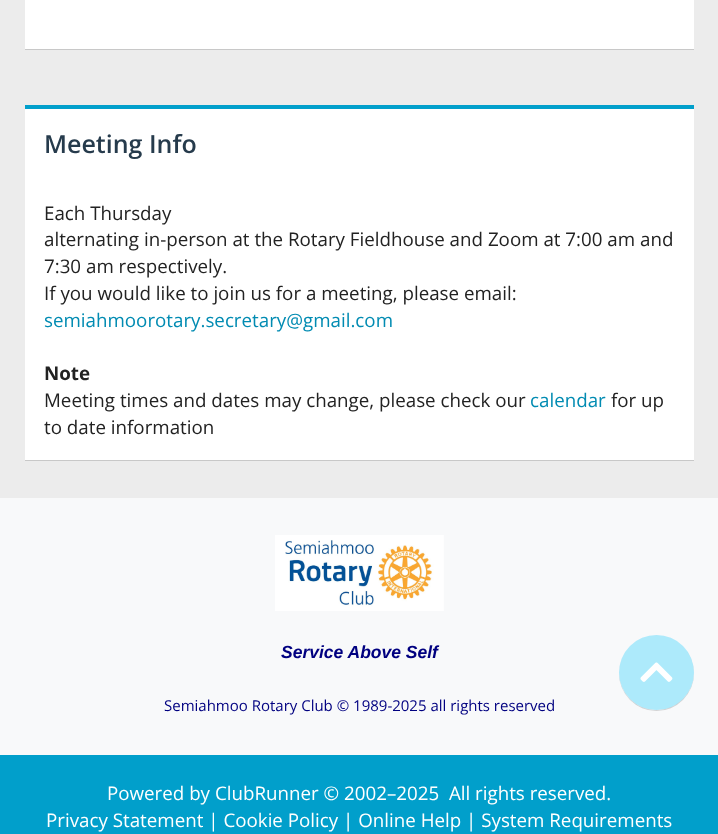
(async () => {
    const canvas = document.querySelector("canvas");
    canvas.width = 718;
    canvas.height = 834;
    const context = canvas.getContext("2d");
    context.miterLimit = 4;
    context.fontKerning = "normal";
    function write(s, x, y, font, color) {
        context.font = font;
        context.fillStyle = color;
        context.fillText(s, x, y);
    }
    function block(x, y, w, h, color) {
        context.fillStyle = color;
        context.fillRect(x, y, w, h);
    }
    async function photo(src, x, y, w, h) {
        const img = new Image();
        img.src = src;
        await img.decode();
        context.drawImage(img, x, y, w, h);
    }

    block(0, 0, 718, 834, "rgb(236, 236, 236)");
    context.fillStyle = "rgba(0, 0, 0, 0.15)";
    context.filter = "blur(0.5px)";
    context.beginPath();
    context.rect(25, -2, 669, 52);
    context.fill();
    context.filter = "none";
    block(25, 0, 669, 49, "rgb(255, 255, 255)");
    context.fillStyle = "rgba(0, 0, 0, 0.15)";
    context.filter = "blur(0.5px)";
    context.beginPath();
    context.rect(25, 106, 669, 355);
    context.fill();
    context.filter = "none";
    block(25, 109, 669, 351, "rgb(255, 255, 255)");
    block(25, 105, 669, 4, "rgb(1, 159, 203)");
    write("Meeting Info", 44, 153, "600 25px Open Sans", "rgb(38, 59, 76)");
    write("Each Thursday", 44, 220, "18.75px Open Sans", "rgb(34, 34, 34)");
    write("alternating in-person at the Rotary Fieldhouse and Zoom at 7:00 am and", 44, 246, "18.75px Open Sans", "rgb(34, 34, 34)");
    write("7:30 am respectively.", 44, 273, "18.75px Open Sans", "rgb(34, 34, 34)");
    write("If you would like to join us for a meeting, please email:", 44, 300, "18.75px Open Sans", "rgb(34, 34, 34)");
    write("semiahmoorotary.secretary@gmail.com", 44, 327, "18.75px Open Sans", "rgb(1, 139, 178)");
    write("Note", 44, 380, "bold 18.75px Open Sans", "rgb(34, 34, 34)");
    write("Meeting times and dates may change, please check our", 44, 407, "18.75px Open Sans", "rgb(34, 34, 34)");
    write("calendar", 530, 407, "18.75px Open Sans", "rgb(1, 139, 178)");
    write("for up", 611, 407, "18.75px Open Sans", "rgb(34, 34, 34)");
    write("to date information", 44, 434, "18.75px Open Sans", "rgb(34, 34, 34)");
    block(0, 498, 718, 257, "rgb(248, 249, 250)");
    context.save();
    context.beginPath();
    context.moveTo(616, 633);
    context.lineTo(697, 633);
    context.lineTo(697, 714);
    context.lineTo(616, 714);
    context.closePath();
    context.moveTo(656.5, 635);
    context.bezierCurveTo(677, 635, 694, 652, 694, 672.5);
    context.bezierCurveTo(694, 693, 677, 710, 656.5, 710);
    context.bezierCurveTo(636, 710, 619, 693, 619, 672.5);
    context.bezierCurveTo(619, 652, 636, 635, 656.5, 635);
    context.closePath();
    context.clip("evenodd");
    context.fillStyle = "rgba(0, 0, 0, 0.15)";
    context.filter = "blur(0.5px)";
    context.beginPath();
    context.roundRect(619, 636, 75, 75, 37.5);
    context.fill();
    context.filter = "none";
    context.restore();
    context.fillStyle = "rgba(1, 199, 254, 0.3)";
    context.beginPath();
    context.arc(656.5, 672.5, 37.5, 0, Math.PI * 2);
    context.fill();
    await photo("media/1.png", 640, 662, 33, 20);
    block(0, 755, 718, 79, "rgb(1, 159, 203)");
    await photo("media/2.png", 275, 535, 169, 76);
    write("Service Above Self", 281, 658, "italic bold 17.5px Liberation Sans", "rgb(0, 0, 128)");
    write("Semiahmoo Rotary Club © 1989-2025 all rights reserved", 164, 711, "15px Open Sans", "rgb(0, 0, 128)");
    write("Powered by ClubRunner © 2002–2025  All rights reserved.", 107, 800, "18.75px Open Sans", "rgb(255, 255, 255)");
    write("Privacy Statement | Cookie Policy | Online Help | System Requirements", 46, 827, "18.75px Open Sans", "rgb(255, 255, 255)");
})();
